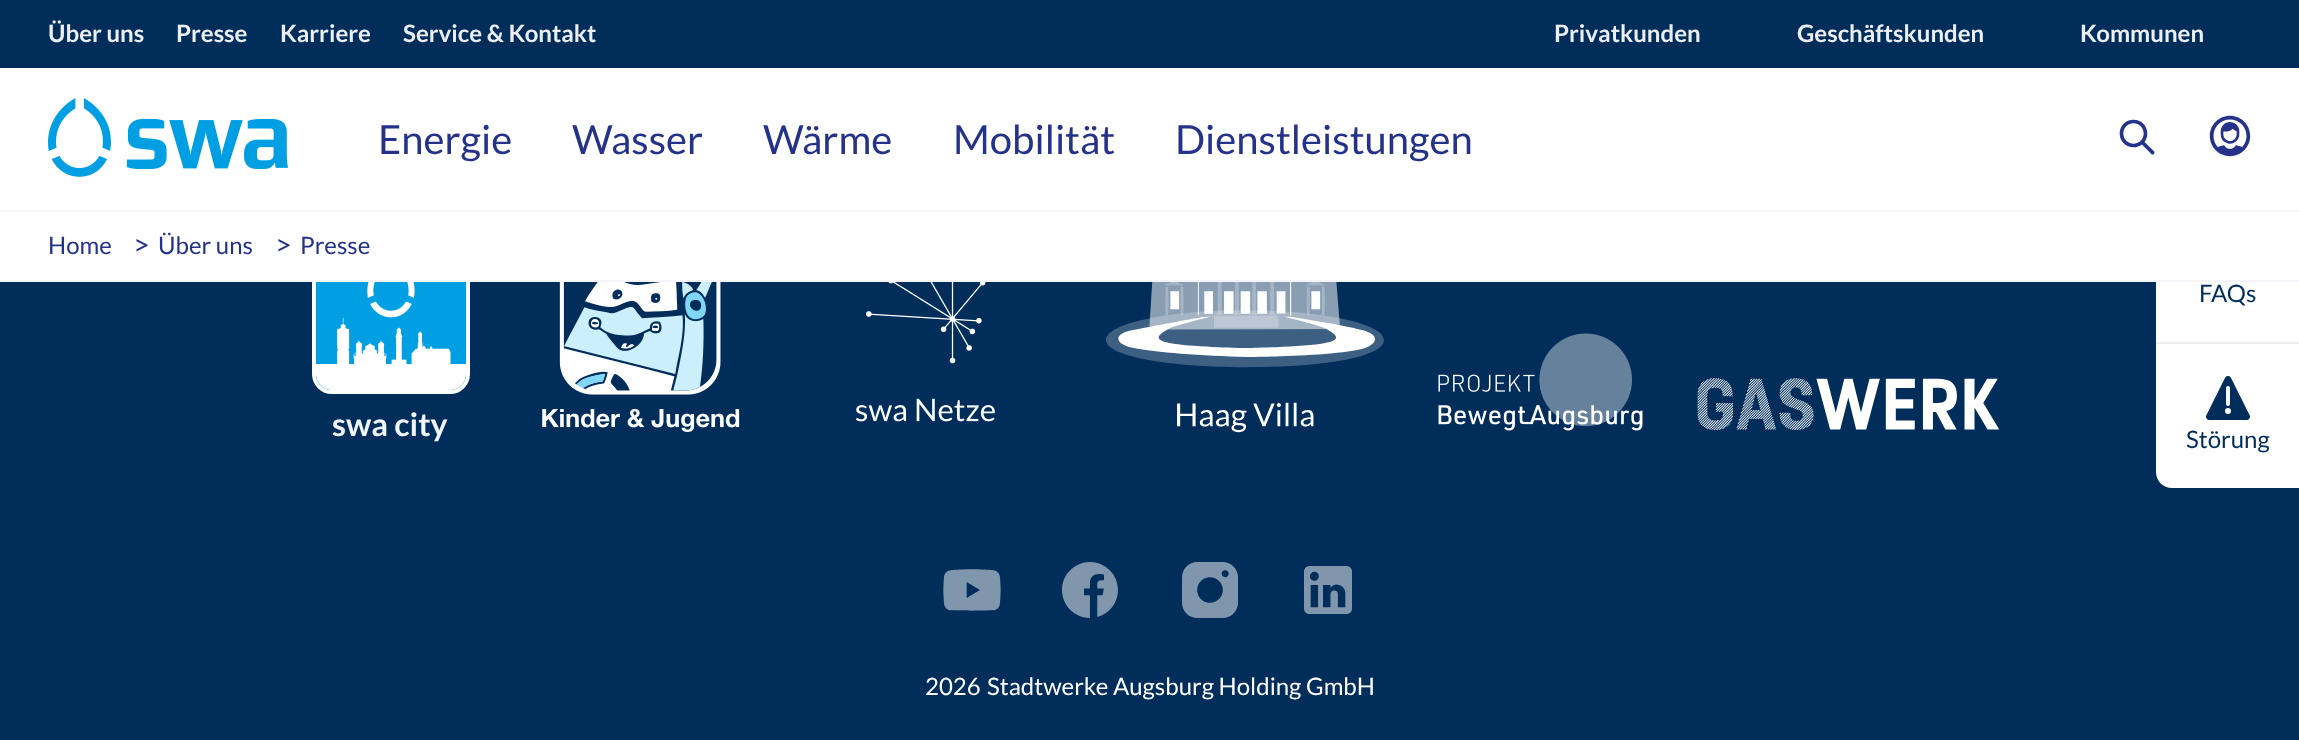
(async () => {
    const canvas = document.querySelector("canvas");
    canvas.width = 2299;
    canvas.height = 740;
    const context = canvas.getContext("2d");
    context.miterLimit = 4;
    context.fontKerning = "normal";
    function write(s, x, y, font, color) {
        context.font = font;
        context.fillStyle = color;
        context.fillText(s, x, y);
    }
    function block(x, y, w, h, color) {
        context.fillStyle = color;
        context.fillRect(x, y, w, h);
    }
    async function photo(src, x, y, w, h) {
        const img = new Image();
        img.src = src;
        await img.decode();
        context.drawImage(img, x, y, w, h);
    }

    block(0, 0, 2299, 740, "rgb(0, 45, 90)");
    block(0, 68, 2156, 142, "rgb(255, 255, 255)");
    context.beginPath();
    context.moveTo(2172, 30);
    context.lineTo(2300, 30);
    context.lineTo(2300, 488);
    context.lineTo(2172, 488);
    context.bezierCurveTo(2163, 488, 2156, 481, 2156, 472);
    context.lineTo(2156, 46);
    context.bezierCurveTo(2156, 37, 2163, 30, 2172, 30);
    context.closePath();
    context.fill();
    block(2156, 30, 143, 38, "rgb(0, 45, 90)");
    write("Über uns", 48, 42, "bold 24px Lato", "rgb(235, 238, 242)");
    write("Presse", 176, 42, "bold 24px Lato", "rgb(235, 238, 242)");
    write("Karriere", 280, 42, "bold 24px Lato", "rgb(235, 238, 242)");
    write("Service & Kontakt", 403, 42, "bold 24px Lato", "rgb(235, 238, 242)");
    write("Privatkunden", 1554, 42, "bold 24px Lato", "rgb(235, 238, 242)");
    write("Geschäftskunden", 1797, 42, "bold 24px Lato", "rgb(235, 238, 242)");
    write("Kommunen", 2080, 42, "bold 24px Lato", "rgb(235, 238, 242)");
    await photo("media/1.png", 48, 98, 240, 79);
    write("Energie", 378, 154, "40px Lato", "rgb(37, 50, 138)");
    write("Wasser", 572, 154, "40px Lato", "rgb(37, 50, 138)");
    write("Wärme", 763, 154, "40px Lato", "rgb(37, 50, 138)");
    write("Mobilität", 953, 154, "40px Lato", "rgb(37, 50, 138)");
    write("Dienstleistungen", 1175, 154, "40px Lato", "rgb(37, 50, 138)");
    await photo("media/2.png", 2119, 119, 36, 36);
    await photo("media/3.png", 2209, 115, 42, 42);
    context.beginPath();
    context.roundRect(314, 238, 154, 154, 18);
    context.strokeStyle = "rgb(255, 255, 255)";
    context.lineWidth = 4;
    context.stroke();
    block(0, 212, 2156, 68, "rgb(255, 255, 255)");
    block(0, 210, 2299, 2, "rgb(244, 245, 249)");
    block(0, 280, 2299, 2, "rgb(244, 245, 249)");
    write("Home", 48, 254, "24px Lato", "rgb(37, 50, 138)");
    context.letterSpacing = "-8px";
    write(">", 133, 255, "29px Lato", "rgb(37, 50, 138)");
    context.letterSpacing = "0px";
    write("Über uns", 158, 254, "24px Lato", "rgb(37, 50, 138)");
    context.letterSpacing = "-8px";
    write(">", 275, 255, "29px Lato", "rgb(37, 50, 138)");
    context.letterSpacing = "0px";
    write("Presse", 300, 254, "24px Lato", "rgb(37, 50, 138)");
    block(2156, 342, 143, 2, "rgb(238, 238, 238)");
    write("FAQs", 2199, 302, "24px Lato", "rgb(0, 45, 90)");
    await photo("media/4.png", 2206, 376, 44, 44);
    write("Störung", 2186, 448, "24px Lato", "rgb(0, 45, 90)");
    await photo("media/5.png", 316, 282, 150, 108);
    write("swa city", 332, 436, "bold 32px Lato", "rgb(242, 245, 247)");
    await photo("media/6.png", 542, 282, 198, 150);
    await photo("media/7.png", 855, 282, 140, 140);
    await photo("media/8.png", 1106, 282, 278, 151);
    await photo("media/9.png", 1438, 333, 205, 98);
    await photo("media/10.png", 1697, 378, 303, 52);
    await photo("media/11.png", 943, 569, 58, 42);
    await photo("media/12.png", 1062, 562, 56, 56);
    await photo("media/13.png", 1182, 562, 56, 56);
    await photo("media/14.png", 1304, 566, 48, 48);
    write("2026", 925, 695, "24px Lato", "rgb(255, 255, 255)");
    write("Stadtwerke Augsburg Holding GmbH", 987, 695, "24px Lato", "rgb(255, 255, 255)");
})();
